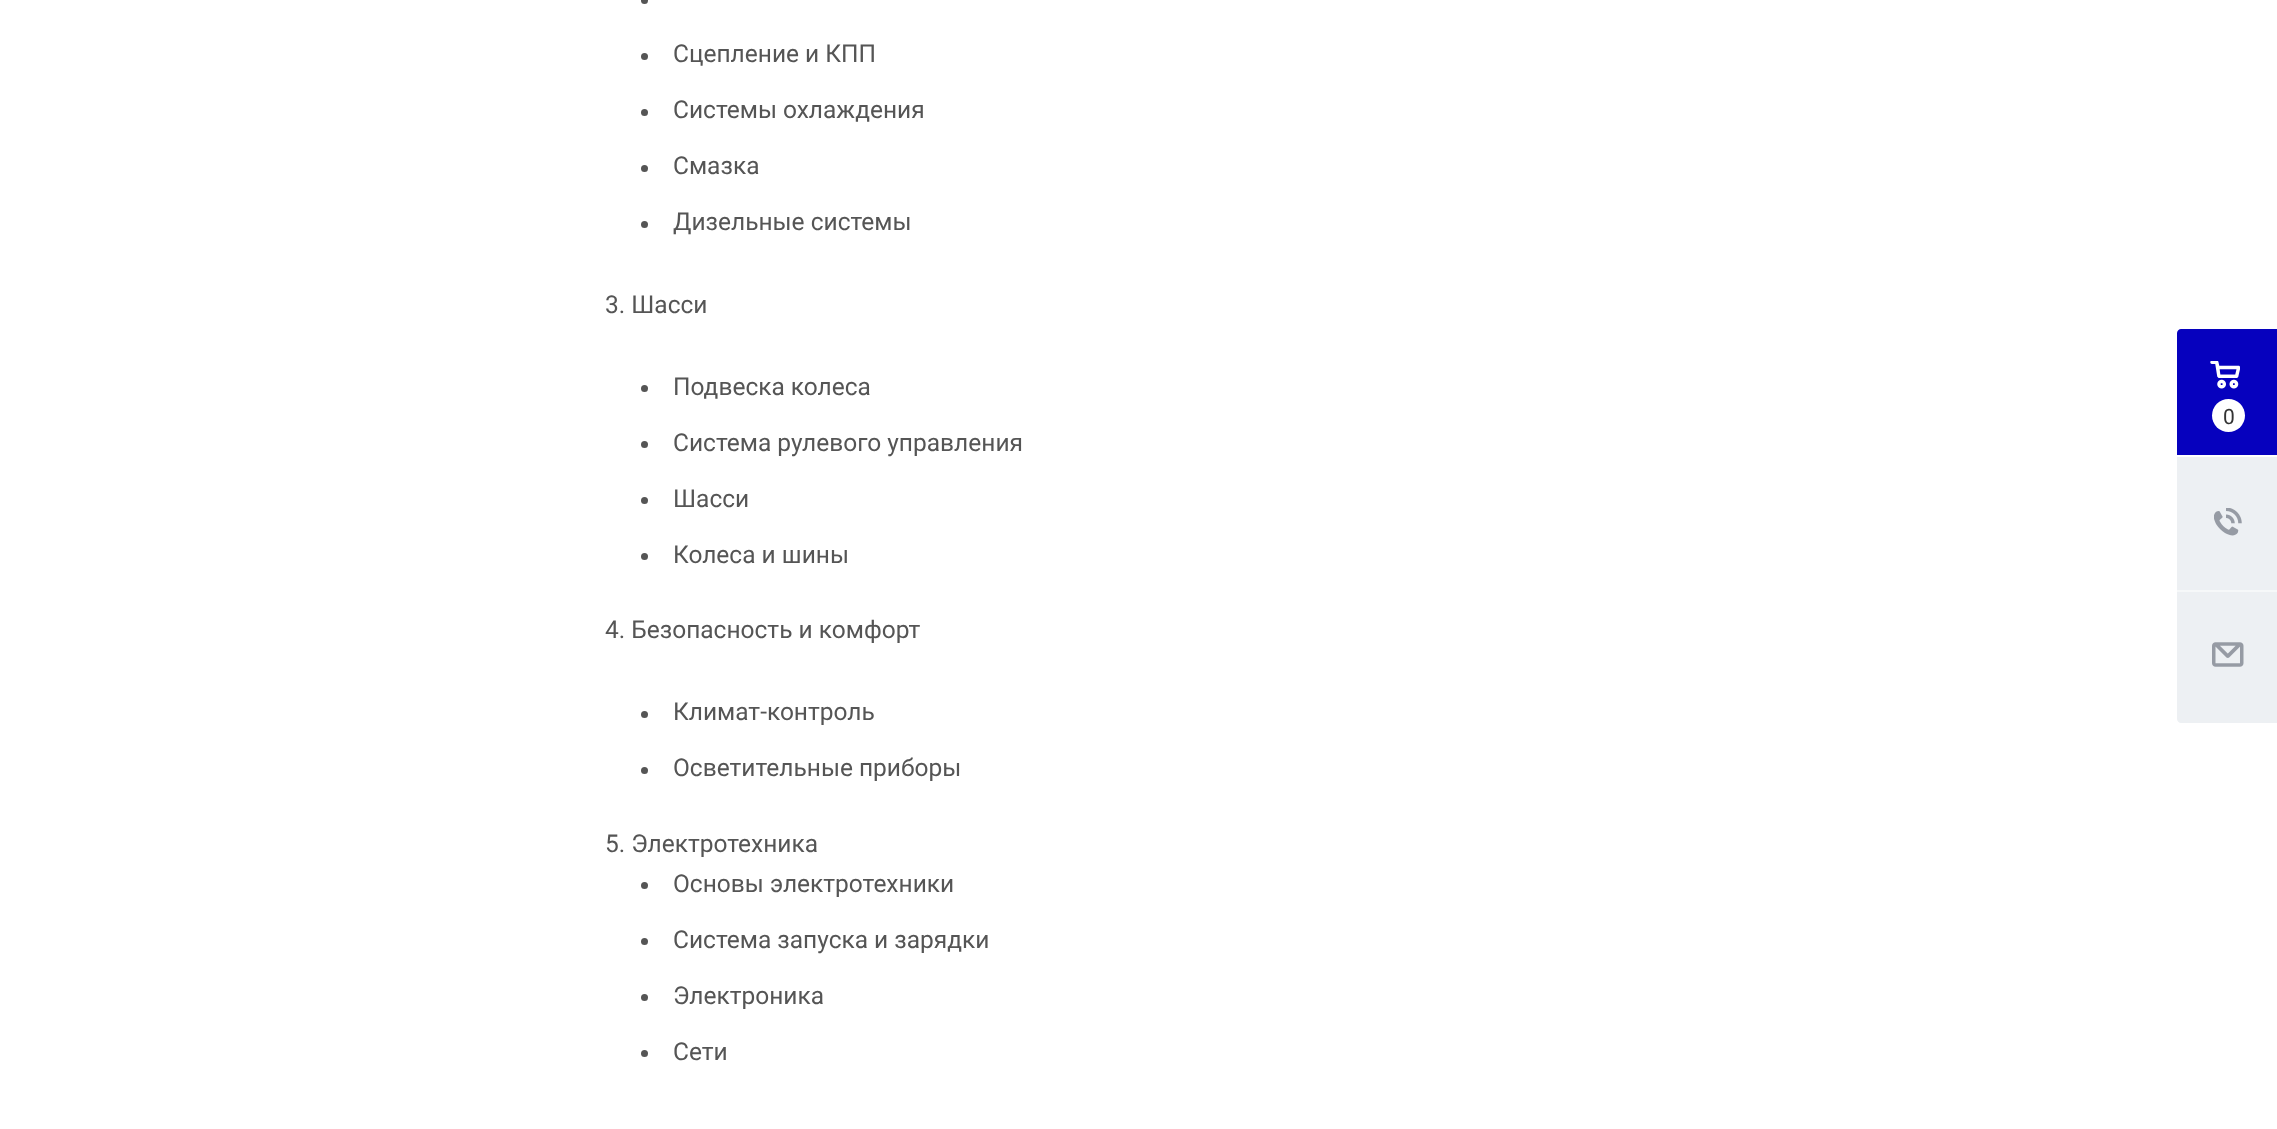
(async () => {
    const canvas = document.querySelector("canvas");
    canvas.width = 2277;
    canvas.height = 1129;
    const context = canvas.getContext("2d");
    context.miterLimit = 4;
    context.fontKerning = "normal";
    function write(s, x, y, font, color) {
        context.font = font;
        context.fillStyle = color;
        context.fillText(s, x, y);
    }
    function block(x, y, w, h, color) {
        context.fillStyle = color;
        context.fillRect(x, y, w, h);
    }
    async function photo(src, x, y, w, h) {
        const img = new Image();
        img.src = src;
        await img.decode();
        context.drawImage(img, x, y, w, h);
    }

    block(0, 0, 2277, 1129, "rgb(255, 255, 255)");
    context.fillStyle = "rgb(85, 85, 85)";
    context.beginPath();
    context.arc(644.5, 0.5, 3.5, 0, Math.PI * 2);
    context.fill();
    context.beginPath();
    context.arc(644.5, 56.5, 3.5, 0, Math.PI * 2);
    context.fill();
    write("Сцепление и КПП", 673, 62, "24.5px Roboto", "rgb(85, 85, 85)");
    context.beginPath();
    context.arc(644.5, 112.5, 3.5, 0, Math.PI * 2);
    context.fill();
    write("Системы охлаждения", 673, 118, "24.5px Roboto", "rgb(85, 85, 85)");
    context.beginPath();
    context.arc(644.5, 168.5, 3.5, 0, Math.PI * 2);
    context.fill();
    write("Смазка", 673, 174, "24.5px Roboto", "rgb(85, 85, 85)");
    context.beginPath();
    context.arc(644.5, 224.5, 3.5, 0, Math.PI * 2);
    context.fill();
    write("Дизельные системы", 673, 230, "24.5px Roboto", "rgb(85, 85, 85)");
    write("3. Шасси", 605, 313, "24.5px Roboto", "rgb(85, 85, 85)");
    context.beginPath();
    context.arc(644.5, 388.5, 3.5, 0, Math.PI * 2);
    context.fill();
    write("Подвеска колеса", 673, 395, "24.5px Roboto", "rgb(85, 85, 85)");
    context.beginPath();
    context.arc(644.5, 444.5, 3.5, 0, Math.PI * 2);
    context.fill();
    write("Система рулевого управления", 673, 451, "24.5px Roboto", "rgb(85, 85, 85)");
    context.beginPath();
    context.arc(644.5, 500.5, 3.5, 0, Math.PI * 2);
    context.fill();
    write("Шасси", 673, 507, "24.5px Roboto", "rgb(85, 85, 85)");
    context.beginPath();
    context.arc(644.5, 556.5, 3.5, 0, Math.PI * 2);
    context.fill();
    write("Колеса и шины", 673, 563, "24.5px Roboto", "rgb(85, 85, 85)");
    write("4. Безопасность и комфорт", 605, 638, "24.5px Roboto", "rgb(85, 85, 85)");
    context.beginPath();
    context.arc(644.5, 714.5, 3.5, 0, Math.PI * 2);
    context.fill();
    write("Климат-контроль", 673, 720, "24.5px Roboto", "rgb(85, 85, 85)");
    context.beginPath();
    context.arc(644.5, 770.5, 3.5, 0, Math.PI * 2);
    context.fill();
    write("Осветительные приборы", 673, 776, "24.5px Roboto", "rgb(85, 85, 85)");
    write("5. Электротехника", 605, 852, "24.5px Roboto", "rgb(85, 85, 85)");
    context.beginPath();
    context.arc(644.5, 885.5, 3.5, 0, Math.PI * 2);
    context.fill();
    write("Основы электротехники", 673, 892, "24.5px Roboto", "rgb(85, 85, 85)");
    context.beginPath();
    context.arc(644.5, 941.5, 3.5, 0, Math.PI * 2);
    context.fill();
    write("Система запуска и зарядки", 673, 948, "24.5px Roboto", "rgb(85, 85, 85)");
    context.beginPath();
    context.arc(644.5, 997.5, 3.5, 0, Math.PI * 2);
    context.fill();
    write("Электроника", 673, 1004, "24.5px Roboto", "rgb(85, 85, 85)");
    context.beginPath();
    context.arc(644.5, 1053.5, 3.5, 0, Math.PI * 2);
    context.fill();
    write("Сети", 673, 1060, "24.5px Roboto", "rgb(85, 85, 85)");
    context.fillStyle = "rgb(6, 1, 190)";
    context.beginPath();
    context.moveTo(2181, 329);
    context.lineTo(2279, 329);
    context.lineTo(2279, 455);
    context.lineTo(2177, 455);
    context.lineTo(2177, 333);
    context.bezierCurveTo(2177, 331, 2179, 329, 2181, 329);
    context.closePath();
    context.fill();
    await photo("media/1.png", 2210, 361, 30, 28);
    context.fillStyle = "rgb(255, 255, 255)";
    context.beginPath();
    context.arc(2228.5, 415.5, 16.5, 0, Math.PI * 2);
    context.fill();
    write("0", 2223, 424, "21px Roboto", "rgb(51, 51, 51)");
    block(2177, 457, 100, 133, "rgb(237, 240, 243)");
    await photo("media/2.png", 2214, 508, 28, 28);
    context.beginPath();
    context.moveTo(2177, 590);
    context.lineTo(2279, 590);
    context.lineTo(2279, 723);
    context.lineTo(2181, 723);
    context.bezierCurveTo(2179, 723, 2177, 721, 2177, 719);
    context.closePath();
    context.fill();
    block(2177, 590, 100, 2, "rgb(246, 248, 249)");
    await photo("media/3.png", 2212, 642, 32, 25);
})();
